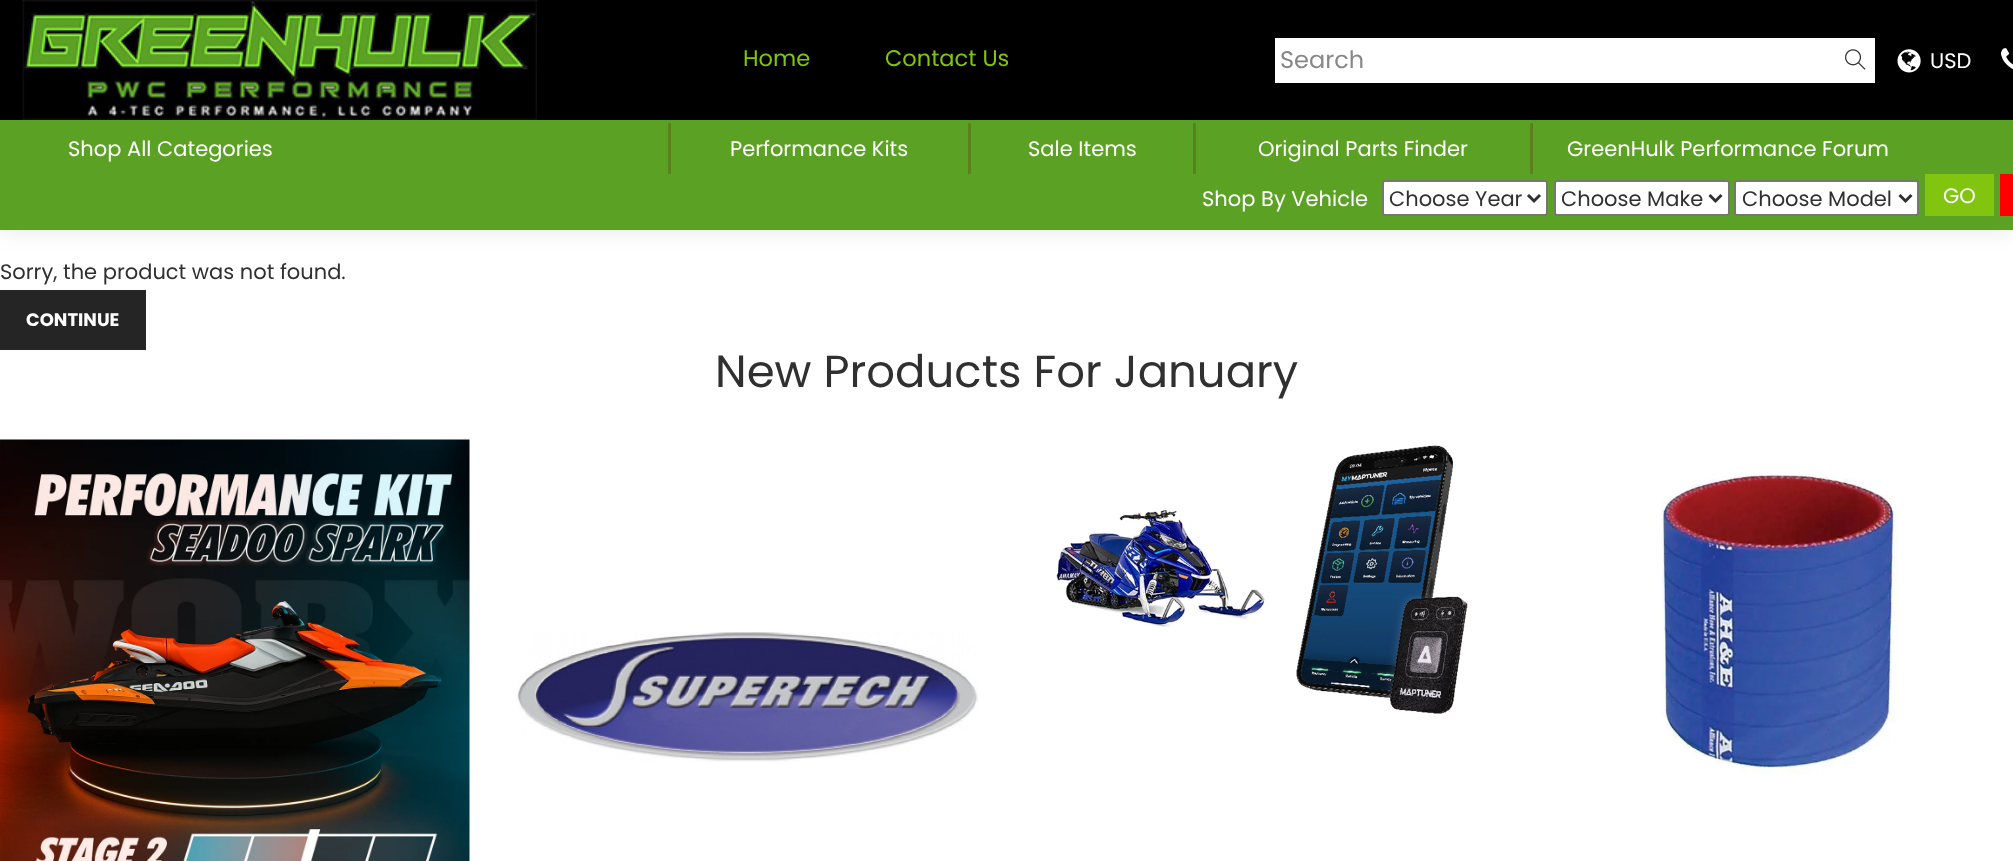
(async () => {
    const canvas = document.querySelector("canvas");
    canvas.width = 2013;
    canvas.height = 861;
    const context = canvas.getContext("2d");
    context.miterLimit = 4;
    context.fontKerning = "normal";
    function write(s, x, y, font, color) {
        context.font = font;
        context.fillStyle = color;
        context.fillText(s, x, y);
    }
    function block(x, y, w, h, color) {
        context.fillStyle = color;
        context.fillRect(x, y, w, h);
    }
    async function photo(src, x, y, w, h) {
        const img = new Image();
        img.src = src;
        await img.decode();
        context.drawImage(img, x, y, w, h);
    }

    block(0, 0, 2013, 861, "rgb(255, 255, 255)");
    context.fillStyle = "rgba(0, 0, 0, 0.1)";
    context.filter = "blur(11px)";
    context.beginPath();
    context.rect(0, 0, 2013, 230);
    context.fill();
    context.filter = "none";
    block(0, 0, 2013, 120, "rgb(0, 0, 0)");
    await photo("media/1.png", 22, 0, 515, 120);
    write("Home", 743, 66, "22.5px Poppins", "rgb(129, 197, 17)");
    write("Contact Us", 885, 66, "22.5px Poppins", "rgb(129, 197, 17)");
    block(1275, 38, 600, 45, "rgb(255, 255, 255)");
    write("Search", 1280, 68, "24px Poppins", "rgb(136, 136, 136)");
    await photo("media/2.png", 1845, 49, 21, 21);
    await photo("media/3.png", 1897, 49, 24, 24);
    write("USD", 1930, 68, "21px Poppins", "rgb(255, 255, 255)");
    await photo("media/4.png", 2001, 48, 12, 21);
    block(0, 120, 2013, 110, "rgb(91, 161, 35)");
    write("Shop All Categories", 68, 156, "21px Poppins", "rgb(255, 255, 255)");
    block(668, 123, 3, 51, "rgb(91, 128, 30)");
    write("Performance Kits", 730, 156, "21px Poppins", "rgb(255, 255, 255)");
    block(968, 123, 3, 51, "rgb(91, 128, 30)");
    write("Sale Items", 1028, 156, "21px Poppins", "rgb(255, 255, 255)");
    block(1193, 123, 3, 51, "rgb(91, 128, 30)");
    write("Original Parts Finder", 1258, 156, "21px Poppins", "rgb(255, 255, 255)");
    block(1530, 123, 3, 51, "rgb(91, 128, 30)");
    write("GreenHulk Performance Forum", 1567, 156, "21px Poppins", "rgb(255, 255, 255)");
    write("Shop By Vehicle", 1202, 206, "21px Poppins", "rgb(255, 255, 255)");
    context.beginPath();
    context.roundRect(1383, 181, 164, 34, 2);
    context.fill();
    context.strokeStyle = "rgb(118, 118, 118)";
    context.lineWidth = 2;
    context.stroke();
    context.beginPath();
    context.moveTo(1528, 195);
    context.lineTo(1534, 201);
    context.lineTo(1540, 195);
    context.strokeStyle = "rgb(48, 48, 48)";
    context.lineWidth = 3;
    context.stroke();
    write("Choose Year", 1389, 206, "21px Poppins", "rgb(48, 48, 48)");
    context.fillStyle = "rgb(255, 255, 255)";
    context.beginPath();
    context.roundRect(1555, 181, 174, 34, 2);
    context.fill();
    context.strokeStyle = "rgb(118, 118, 118)";
    context.lineWidth = 2;
    context.stroke();
    context.beginPath();
    context.moveTo(1709.5, 195);
    context.lineTo(1715.5, 201);
    context.lineTo(1721.5, 195);
    context.strokeStyle = "rgb(48, 48, 48)";
    context.lineWidth = 3;
    context.stroke();
    context.save();
    context.beginPath();
    context.rect(1562, 182, 142, 33);
    context.clip();
    write("Choose Make", 1561, 206, "21px Poppins", "rgb(48, 48, 48)");
    context.restore();
    context.beginPath();
    context.roundRect(1735, 181, 183, 34, 2);
    context.fill();
    context.strokeStyle = "rgb(118, 118, 118)";
    context.lineWidth = 2;
    context.stroke();
    context.beginPath();
    context.moveTo(1899.5, 195);
    context.lineTo(1905.5, 201);
    context.lineTo(1911.5, 195);
    context.strokeStyle = "rgb(48, 48, 48)";
    context.lineWidth = 3;
    context.stroke();
    write("Choose Model", 1742, 206, "21px Poppins", "rgb(48, 48, 48)");
    block(1925, 174, 69, 42, "rgb(129, 197, 17)");
    write("GO", 1943, 203, "21px Poppins", "rgb(255, 255, 255)");
    block(2000, 174, 13, 42, "rgb(255, 0, 0)");
    write("Sorry, the product was not found.", 0, 279, "21px Poppins", "rgb(48, 48, 48)");
    block(0, 290, 146, 60, "rgb(37, 37, 37)");
    write("CONTINUE", 26, 326, "bold 18px Poppins", "rgb(255, 255, 255)");
    write("New Products For January", 715, 387, "45px Poppins", "rgb(48, 48, 48)");
    await photo("media/5.png", 0, 439, 470, 422);
    await photo("media/6.png", 517, 632, 461, 130);
    await photo("media/7.png", 1056, 445, 412, 269);
    await photo("media/8.png", 1661, 472, 237, 303);
})();
